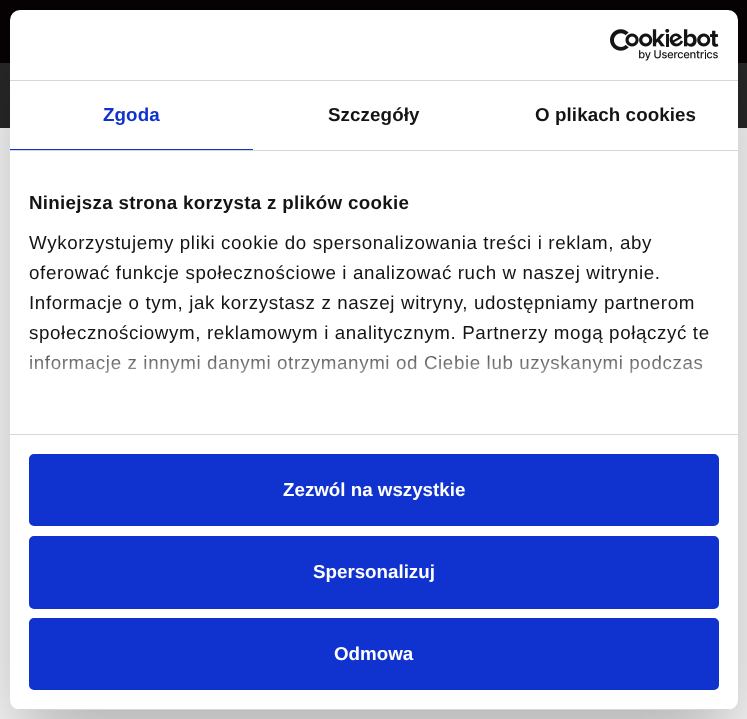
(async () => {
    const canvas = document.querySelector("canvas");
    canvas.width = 747;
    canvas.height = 719;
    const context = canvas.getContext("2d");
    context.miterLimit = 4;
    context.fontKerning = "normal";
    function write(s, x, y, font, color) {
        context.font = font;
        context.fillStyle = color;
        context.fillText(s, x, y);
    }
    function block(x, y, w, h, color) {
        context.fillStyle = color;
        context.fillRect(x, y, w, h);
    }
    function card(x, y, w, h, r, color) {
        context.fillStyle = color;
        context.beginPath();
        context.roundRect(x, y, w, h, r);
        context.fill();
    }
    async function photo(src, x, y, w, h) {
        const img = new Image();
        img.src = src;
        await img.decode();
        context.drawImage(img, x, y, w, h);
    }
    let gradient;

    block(0, 0, 747, 719, "rgb(255, 255, 255)");
    block(0, 0, 747, 63, "rgb(7, 3, 4)");
    block(0, 63, 747, 65, "rgb(41, 41, 41)");
    context.fillStyle = "rgba(0, 0, 0, 0.3)";
    context.filter = "blur(42.5px)";
    context.beginPath();
    context.roundRect(10, 50, 728, 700, 10);
    context.fill();
    context.filter = "none";
    card(10, 10, 728, 700, 10, "rgb(255, 255, 255)");
    block(10, 80, 728, 1, "rgb(214, 214, 214)");
    await photo("media/1.png", 610, 29, 109, 32);
    block(10, 150, 728, 1, "rgb(214, 214, 214)");
    block(10, 149, 243, 1, "rgb(16, 50, 207)");
    context.letterSpacing = "0.1px";
    write("Zgoda", 103, 121, "bold 18.75px Liberation Sans", "rgb(16, 50, 207)");
    write("Szczegóły", 328, 121, "bold 18.75px Liberation Sans", "rgb(20, 20, 20)");
    write("O plikach cookies", 535, 121, "bold 18.75px Liberation Sans", "rgb(20, 20, 20)");
    block(10, 434, 728, 1, "rgb(214, 214, 214)");
    context.letterSpacing = "0.3px";
    write("Niniejsza strona korzysta z plików cookie", 29, 209, "bold 18.75px Liberation Sans", "rgb(20, 20, 20)");
    context.letterSpacing = "0.62px";
    write("Wykorzystujemy pliki cookie do spersonalizowania treści i reklam, aby", 29, 249, "18.75px Liberation Sans", "rgb(20, 20, 20)");
    write("oferować funkcje społecznościowe i analizować ruch w naszej witrynie.", 29, 279, "18.75px Liberation Sans", "rgb(20, 20, 20)");
    write("Informacje o tym, jak korzystasz z naszej witryny, udostępniamy partnerom", 29, 309, "18.75px Liberation Sans", "rgb(20, 20, 20)");
    write("społecznościowym, reklamowym i analitycznym. Partnerzy mogą połączyć te", 29, 339, "18.75px Liberation Sans", "rgb(20, 20, 20)");
    write("informacje z innymi danymi otrzymanymi od Ciebie lub uzyskanymi podczas", 29, 369, "18.75px Liberation Sans", "rgb(20, 20, 20)");
    gradient = context.createLinearGradient(366, 434, 366, 340);
    gradient.addColorStop(0, "rgb(255, 255, 255)");
    gradient.addColorStop(0.5, "rgba(255, 255, 255, 0.8)");
    gradient.addColorStop(1, "rgba(255, 255, 255, 0)");
    context.fillStyle = gradient;
    context.fillRect(30, 341, 673, 32);
    context.save();
    context.beginPath();
    context.roundRect(10, 10, 728, 700, 10);
    context.clip();
    block(10, 709, 728, 1, "rgb(214, 214, 214)");
    context.restore();
    context.fillStyle = "rgb(16, 50, 207)";
    context.beginPath();
    context.roundRect(30.5, 455.5, 687, 69, 3.5);
    context.fill();
    context.strokeStyle = "rgb(16, 50, 207)";
    context.lineWidth = 3;
    context.stroke();
    context.letterSpacing = "0px";
    write("Zezwól na wszystkie", 283, 496, "bold 18.75px Liberation Sans", "rgb(255, 255, 255)");
    context.fillStyle = "rgb(16, 50, 207)";
    context.beginPath();
    context.roundRect(30.5, 537.5, 687, 70, 3.5);
    context.fill();
    context.stroke();
    write("Spersonalizuj", 313, 578, "bold 18.75px Liberation Sans", "rgb(255, 255, 255)");
    context.fillStyle = "rgb(16, 50, 207)";
    context.beginPath();
    context.roundRect(30.5, 619.5, 687, 69, 3.5);
    context.fill();
    context.stroke();
    write("Odmowa", 334, 660, "bold 18.75px Liberation Sans", "rgb(255, 255, 255)");
})();
